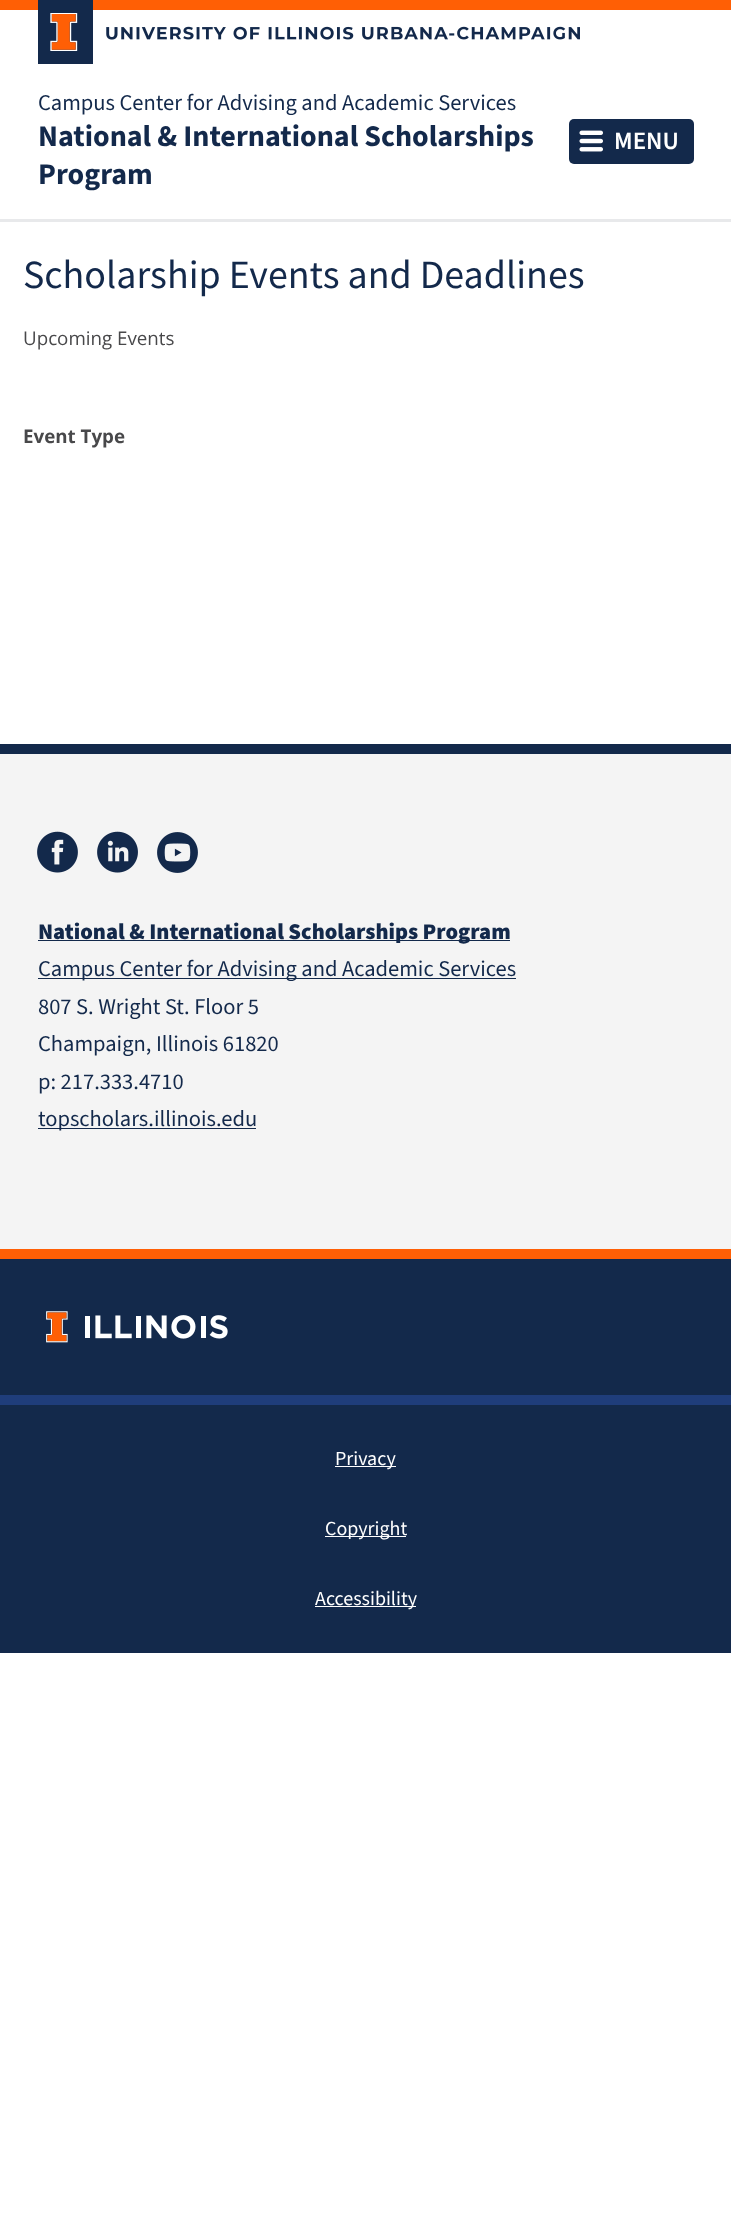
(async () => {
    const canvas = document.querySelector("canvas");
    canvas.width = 731;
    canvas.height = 2237;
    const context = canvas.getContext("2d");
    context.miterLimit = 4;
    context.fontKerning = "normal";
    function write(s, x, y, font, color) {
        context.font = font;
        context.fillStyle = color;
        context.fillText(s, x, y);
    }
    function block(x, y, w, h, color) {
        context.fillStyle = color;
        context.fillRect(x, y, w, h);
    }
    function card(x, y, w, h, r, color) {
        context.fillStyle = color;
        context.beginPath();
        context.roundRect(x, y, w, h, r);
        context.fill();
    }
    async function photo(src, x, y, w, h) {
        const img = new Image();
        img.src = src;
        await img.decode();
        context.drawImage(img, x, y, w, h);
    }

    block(0, 0, 731, 2237, "rgb(255, 255, 255)");
    block(0, 219, 731, 3, "rgb(232, 233, 235)");
    block(0, 0, 731, 10, "rgb(255, 95, 5)");
    block(38, 0, 55, 64, "rgb(19, 41, 75)");
    await photo("media/1.png", 50, 13, 28, 38);
    await photo("media/2.png", 106, 26, 474, 14);
    write("Campus Center for Advising and Academic Services", 38, 110, "22.5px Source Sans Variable", "rgb(19, 41, 75)");
    write("National & International Scholarships", 38, 146, "bold 30px Source Sans Variable", "rgb(19, 41, 75)");
    write("Program", 38, 184, "bold 30px Source Sans Variable", "rgb(19, 41, 75)");
    card(569, 119, 125, 45, 5, "rgb(19, 41, 75)");
    await photo("media/3.png", 579, 130, 24, 22);
    write("MENU", 614, 149, "600 25px Source Sans Variable", "rgb(255, 255, 255)");
    write("Scholarship Events and Deadlines", 23, 288, "40px Source Sans Pro", "rgb(19, 41, 75)");
    write("Upcoming Events", 23, 345, "18.75px Open Sans", "rgb(72, 72, 74)");
    write("Event Type", 23, 443, "bold 18.75px Open Sans", "rgb(72, 72, 74)");
    block(0, 754, 731, 495, "rgb(244, 244, 244)");
    block(0, 744, 731, 10, "rgb(19, 41, 75)");
    await photo("media/4.png", 37, 831, 41, 42);
    await photo("media/5.png", 97, 831, 41, 42);
    await photo("media/6.png", 157, 832, 41, 41);
    block(38, 940, 472, 1, "rgb(19, 41, 75)");
    write("National & International Scholarships Program", 38, 939, "900 22.5px Source Sans Variable", "rgb(19, 41, 75)");
    block(38, 978, 478, 1, "rgb(19, 41, 75)");
    write("Campus Center for Advising and Academic Services", 38, 976, "22.5px Source Sans Variable", "rgb(19, 41, 75)");
    write("807 S. Wright St. Floor 5", 38, 1014, "22.5px Source Sans Variable", "rgb(19, 41, 75)");
    write("Champaign, Illinois 61820", 38, 1051, "22.5px Source Sans Variable", "rgb(19, 41, 75)");
    write("p: 217.333.4710", 38, 1089, "22.5px Source Sans Variable", "rgb(19, 41, 75)");
    block(38, 1128, 218, 1, "rgb(19, 41, 75)");
    write("topscholars.illinois.edu", 38, 1126, "22.5px Source Sans Variable", "rgb(19, 41, 75)");
    block(0, 1259, 731, 136, "rgb(19, 41, 75)");
    block(0, 1249, 731, 10, "rgb(255, 95, 5)");
    await photo("media/7.png", 46, 1311, 182, 32);
    block(0, 1405, 731, 248, "rgb(19, 41, 75)");
    block(0, 1395, 731, 10, "rgb(31, 61, 123)");
    block(335, 1466, 61, 1, "rgb(255, 255, 255)");
    write("Privacy", 335, 1465, "20px Source Sans Variable", "rgb(255, 255, 255)");
    block(325, 1536, 81, 1, "rgb(255, 255, 255)");
    write("Copyright", 325, 1535, "20px Source Sans Variable", "rgb(255, 255, 255)");
    block(315, 1606, 101, 1, "rgb(255, 255, 255)");
    write("Accessibility", 315, 1605, "20px Source Sans Variable", "rgb(255, 255, 255)");
})();
